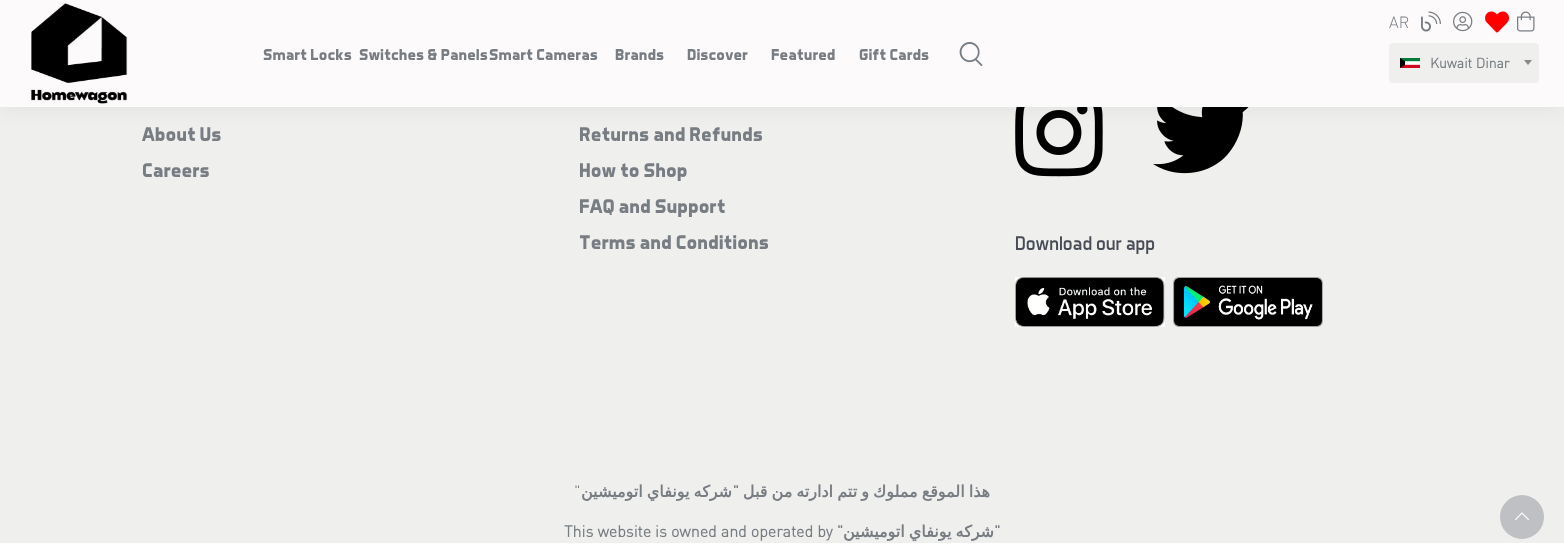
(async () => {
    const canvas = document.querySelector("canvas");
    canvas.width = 1564;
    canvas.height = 559;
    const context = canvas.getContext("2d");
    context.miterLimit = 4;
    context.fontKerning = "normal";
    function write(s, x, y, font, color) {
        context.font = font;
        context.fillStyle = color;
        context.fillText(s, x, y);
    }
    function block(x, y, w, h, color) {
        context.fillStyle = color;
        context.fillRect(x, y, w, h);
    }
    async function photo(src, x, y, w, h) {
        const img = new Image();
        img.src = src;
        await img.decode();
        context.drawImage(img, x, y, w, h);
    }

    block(0, 0, 1564, 559, "rgb(255, 255, 255)");
    block(0, 107, 1564, 436, "rgb(239, 239, 237)");
    await photo("media/8.png", 1015, 107, 88, 70);
    await photo("media/9.png", 1153, 107, 96, 67);
    context.fillStyle = "rgba(0, 0, 0, 0.05)";
    context.filter = "blur(10px)";
    context.beginPath();
    context.rect(1, 5, 1562, 105);
    context.fill();
    context.filter = "none";
    block(0, 0, 1564, 107, "rgb(252, 250, 250)");
    await photo("media/1.png", 31, 3, 97, 101);
    write("Smart Locks", 263, 60, "bold 16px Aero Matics", "rgb(120, 125, 131)");
    write("Switches & Panels", 359, 60, "bold 16px Aero Matics", "rgb(120, 125, 131)");
    write("Smart Cameras", 489, 60, "bold 16px Aero Matics", "rgb(120, 125, 131)");
    write("Brands", 615, 60, "bold 16px Aero Matics", "rgb(120, 125, 131)");
    write("Discover", 687, 60, "bold 16px Aero Matics", "rgb(120, 125, 131)");
    write("Featured", 771, 60, "bold 16px Aero Matics", "rgb(120, 125, 131)");
    write("Gift Cards", 859, 60, "bold 16px Aero Matics", "rgb(120, 125, 131)");
    await photo("media/2.png", 959, 42, 24, 24);
    write("AR", 1389, 28, "300 16px DIN", "rgb(120, 125, 131)");
    await photo("media/3.png", 1421, 11, 20, 21);
    await photo("media/4.png", 1453, 11, 20, 21);
    await photo("media/5.png", 1485, 11, 24, 22);
    await photo("media/6.png", 1517, 11, 18, 21);
    context.fillStyle = "rgb(239, 239, 237)";
    context.beginPath();
    context.roundRect(1389.5, 43.5, 149, 39, 3.5);
    context.fill();
    context.strokeStyle = "rgb(239, 239, 237)";
    context.stroke();
    await photo("media/7.png", 1400, 58, 20, 10);
    write("Kuwait Dinar", 1430, 68, "bold 14px DIN", "rgb(120, 125, 131)");
    context.fillStyle = "rgb(136, 136, 136)";
    context.beginPath();
    context.moveTo(1524, 60);
    context.lineTo(1532, 60);
    context.lineTo(1528, 65);
    context.closePath();
    context.fill();
    write("About Us", 142, 141, "bold 20px Aero Matics", "rgb(120, 125, 131)");
    write("Careers", 142, 177, "bold 20px Aero Matics", "rgb(120, 125, 131)");
    write("Returns and Refunds", 579, 141, "bold 20px Aero Matics", "rgb(120, 125, 131)");
    write("How to Shop", 579, 177, "bold 20px Aero Matics", "rgb(120, 125, 131)");
    write("FAQ and Support", 579, 213, "bold 20px Aero Matics", "rgb(120, 125, 131)");
    write("Terms and Conditions", 579, 249, "bold 20px Aero Matics", "rgb(120, 125, 131)");
    write("Download our app", 1015, 250, "20px Aero Matics", "rgb(72, 76, 86)");
    await photo("media/10.png", 1015, 277, 150, 50);
    await photo("media/11.png", 1173, 277, 150, 50);
    write("\"", 574, 497, "300 16px DIN", "rgb(120, 125, 131)");
    context.wordSpacing = "-1px";
    context.direction = "rtl";
    write("شركه يونفاي اتوميشين", 732, 497, "bold 16px DejaVu Sans", "rgb(120, 125, 131)");
    context.wordSpacing = "0px";
    write("\"", 739, 497, "bold 16px DIN", "rgb(120, 125, 131)");
    context.wordSpacing = "-1px";
    write("هذا الموقع مملوك و تتم ادارته من قبل", 990, 497, "bold 16px DejaVu Sans", "rgb(120, 125, 131)");
    context.wordSpacing = "0px";
    context.direction = "ltr";
    write("This website is owned and operated by \"", 564, 537, "bold 16px DIN", "rgb(120, 125, 131)");
    context.wordSpacing = "-1px";
    context.direction = "rtl";
    write("شركه يونفاي اتوميشين", 994, 537, "bold 16px DejaVu Sans", "rgb(120, 125, 131)");
    context.wordSpacing = "0px";
    context.direction = "ltr";
    write("\"", 994, 537, "bold 16px DIN", "rgb(120, 125, 131)");
    context.fillStyle = "rgb(190, 192, 195)";
    context.beginPath();
    context.arc(1522, 517, 22, 0, Math.PI * 2);
    context.fill();
    await photo("media/12.png", 1515, 512, 14, 8);
})();
